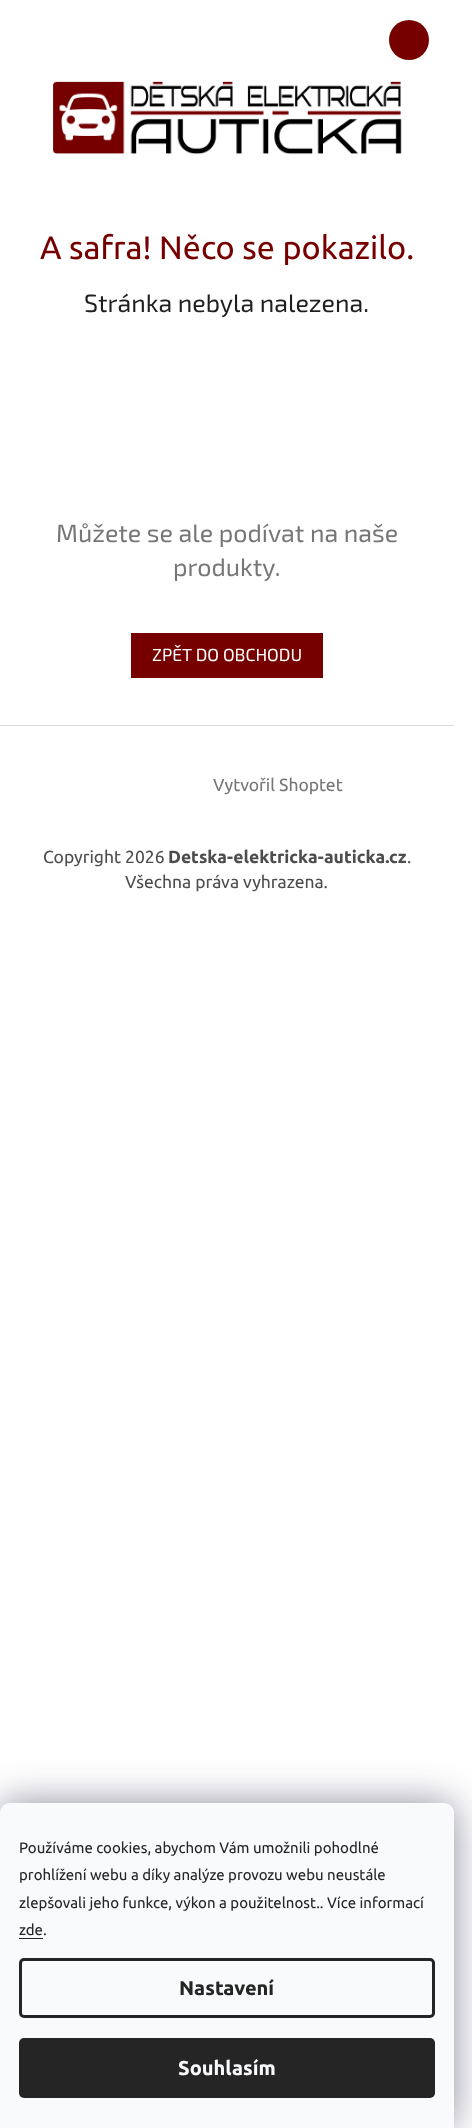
(async () => {
    const canvas = document.querySelector("canvas");
    canvas.width = 472;
    canvas.height = 2128;
    const context = canvas.getContext("2d");
    context.miterLimit = 4;
    context.fontKerning = "normal";
    function write(s, x, y, font, color) {
        context.font = font;
        context.fillStyle = color;
        context.fillText(s, x, y);
    }
    function block(x, y, w, h, color) {
        context.fillStyle = color;
        context.fillRect(x, y, w, h);
    }
    function card(x, y, w, h, r, color) {
        context.fillStyle = color;
        context.beginPath();
        context.roundRect(x, y, w, h, r);
        context.fill();
    }
    async function photo(src, x, y, w, h) {
        const img = new Image();
        img.src = src;
        await img.decode();
        context.drawImage(img, x, y, w, h);
    }

    block(0, 0, 472, 2128, "rgb(255, 255, 255)");
    context.fillStyle = "rgb(118, 0, 0)";
    context.beginPath();
    context.arc(409, 40, 20, 0, Math.PI * 2);
    context.fill();
    await photo("media/1.png", 53, 81, 349, 74);
    write("A safra! Něco se pokazilo.", 40, 259, "32.5px Ubuntu", "rgb(118, 0, 0)");
    write("Stránka nebyla nalezena.", 84, 312, "25px 'Exo 2'", "rgb(31, 31, 31)");
    write("Můžete se ale podívat na naše", 56, 542, "25px 'Exo 2'", "rgb(118, 118, 118)");
    write("produkty.", 173, 576, "25px 'Exo 2'", "rgb(118, 118, 118)");
    block(131, 633, 192, 45, "rgb(118, 0, 0)");
    write("ZPĚT DO OBCHODU", 152, 661, "17.5px 'Exo 2'", "rgb(255, 255, 255)");
    block(0, 725, 454, 1, "rgb(218, 218, 218)");
    write("Vytvořil Shoptet", 213, 791, "17.5px Ubuntu", "rgb(118, 118, 118)");
    write("Copyright 2026", 43, 863, "17.5px Ubuntu", "rgb(77, 77, 77)");
    write("Detska-elektricka-auticka.cz", 168, 863, "bold 17.5px Ubuntu", "rgb(77, 77, 77)");
    write(".", 407, 863, "17.5px Ubuntu", "rgb(77, 77, 77)");
    write("Všechna práva vyhrazena.", 125, 888, "17.5px Ubuntu", "rgb(77, 77, 77)");
    context.fillStyle = "rgba(27, 25, 57, 0.5)";
    context.filter = "blur(19px)";
    context.beginPath();
    context.roundRect(0, 1803, 454, 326, 10);
    context.fill();
    context.filter = "none";
    context.fillStyle = "rgb(248, 250, 251)";
    context.beginPath();
    context.moveTo(10, 1803);
    context.lineTo(444, 1803);
    context.bezierCurveTo(449.5, 1803, 454, 1807.5, 454, 1813);
    context.lineTo(454, 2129);
    context.lineTo(0, 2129);
    context.lineTo(0, 1813);
    context.bezierCurveTo(0, 1807.5, 4.5, 1803, 10, 1803);
    context.closePath();
    context.fill();
    write("Používáme cookies, abychom Vám umožnili pohodlné", 19, 1853, "15px Ubuntu", "rgb(37, 37, 37)");
    write("prohlížení webu a díky analýze provozu webu neustále", 19, 1880, "15px Ubuntu", "rgb(37, 37, 37)");
    write("zlepšovali jeho funkce, výkon a použitelnost.. Více informací", 19, 1908, "15px Ubuntu", "rgb(37, 37, 37)");
    write("zde.", 19, 1935, "15px Ubuntu", "rgb(37, 37, 37)");
    block(19, 1938, 24, 1, "rgb(37, 37, 37)");
    context.beginPath();
    context.roundRect(20.5, 1959.5, 413, 57, 3.5);
    context.strokeStyle = "rgb(37, 37, 37)";
    context.lineWidth = 3;
    context.stroke();
    write("Nastavení", 179, 1995, "bold 20px Ubuntu", "rgb(37, 37, 37)");
    card(19, 2038, 416, 60, 5, "rgb(37, 37, 37)");
    write("Souhlasím", 178, 2075, "bold 20px Ubuntu", "rgb(248, 250, 251)");
})();
